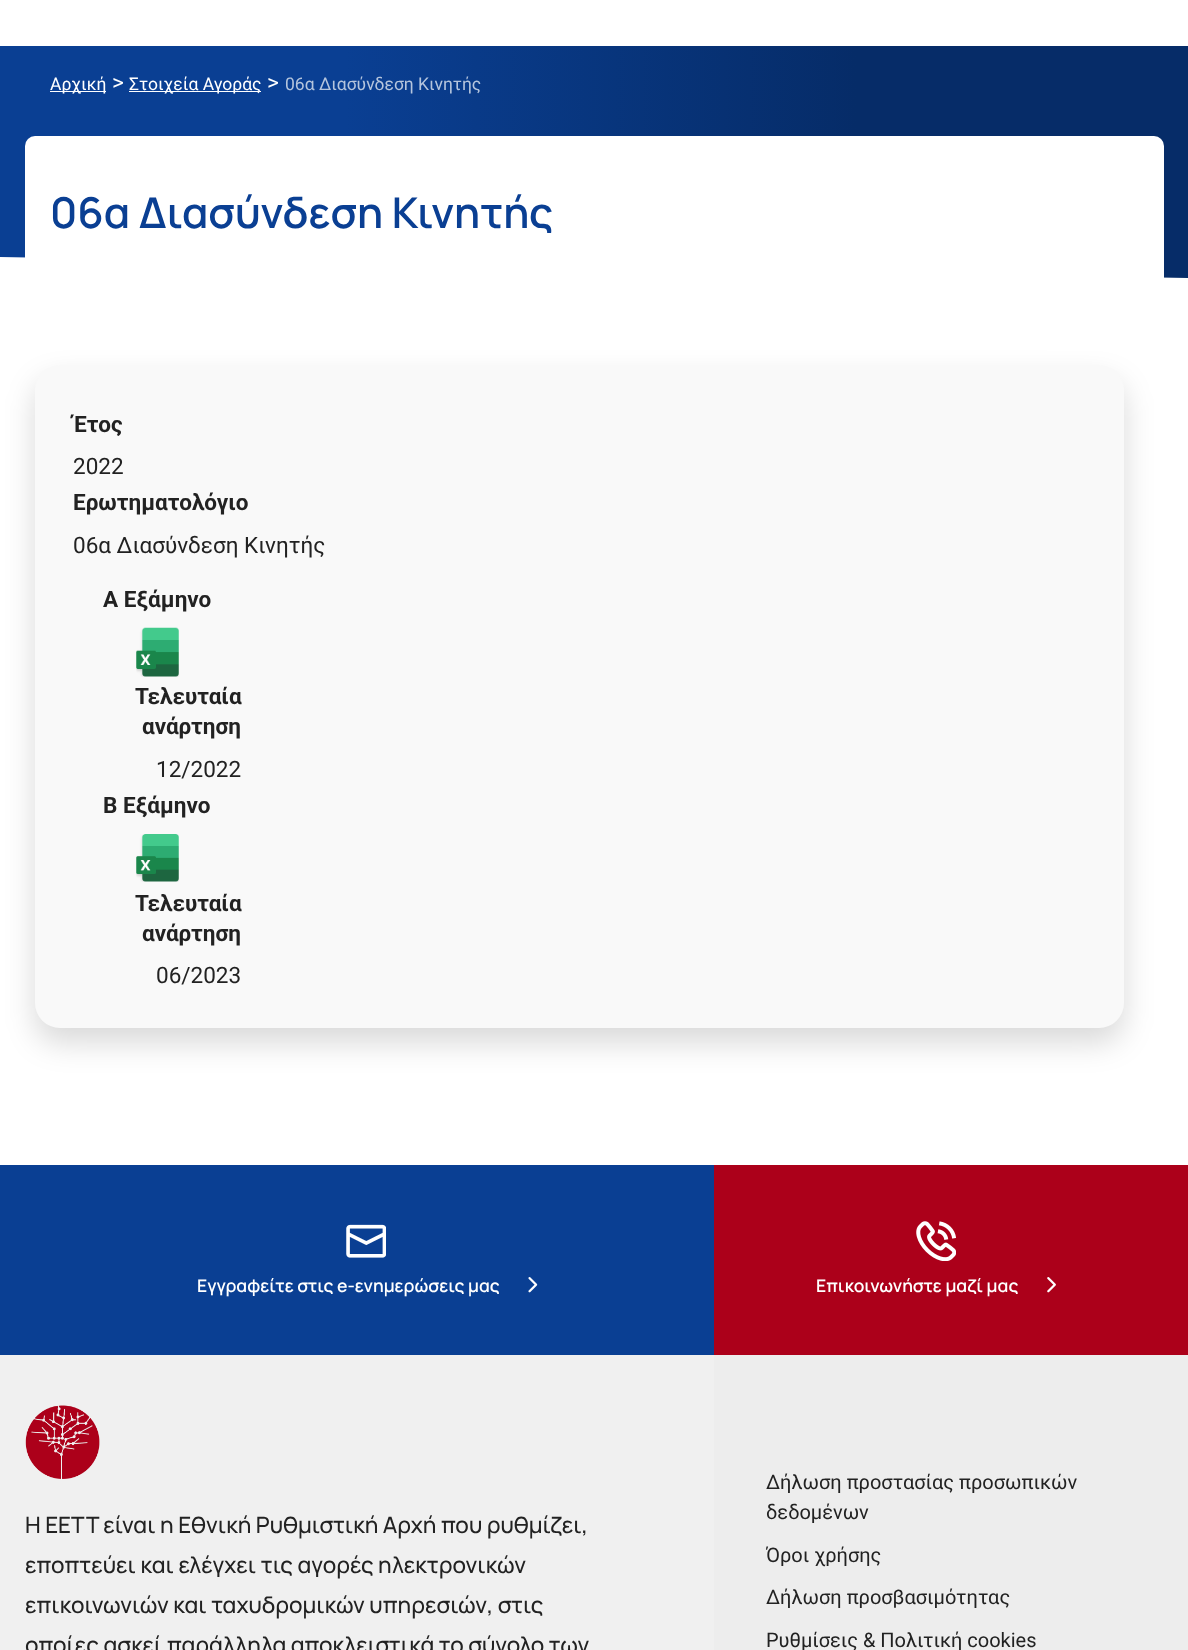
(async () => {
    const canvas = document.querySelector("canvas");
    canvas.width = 1188;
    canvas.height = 1650;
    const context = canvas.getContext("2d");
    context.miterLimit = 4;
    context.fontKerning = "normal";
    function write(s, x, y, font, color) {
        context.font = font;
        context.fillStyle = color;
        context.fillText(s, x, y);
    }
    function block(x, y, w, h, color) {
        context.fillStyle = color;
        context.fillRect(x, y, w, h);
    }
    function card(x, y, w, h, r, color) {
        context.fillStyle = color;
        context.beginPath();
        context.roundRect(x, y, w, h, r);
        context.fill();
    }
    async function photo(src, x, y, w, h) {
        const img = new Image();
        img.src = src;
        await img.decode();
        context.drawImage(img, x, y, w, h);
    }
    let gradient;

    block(0, 0, 1188, 1650, "rgb(255, 255, 255)");
    gradient = context.createLinearGradient(0, 162, 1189, 162);
    gradient.addColorStop(0.29, "rgb(10, 63, 147)");
    gradient.addColorStop(0.72, "rgb(6, 44, 104)");
    context.fillStyle = gradient;
    context.fillRect(0, 46, 1188, 232);
    block(50, 91, 56, 1, "rgb(255, 255, 255)");
    write("Αρχική", 50, 90, "17.5px Roboto", "rgb(255, 255, 255)");
    write(">", 112, 90, "22.5px Roboto", "rgb(255, 255, 255)");
    block(129, 91, 132, 1, "rgb(255, 255, 255)");
    write("Στοιχεία Αγοράς", 129, 90, "17.5px Roboto", "rgb(255, 255, 255)");
    write(">", 267, 90, "22.5px Roboto", "rgb(255, 255, 255)");
    write("06α Διασύνδεση Κινητής", 285, 90, "17.5px Roboto", "rgb(181, 197, 221)");
    context.fillStyle = "rgb(255, 255, 255)";
    context.beginPath();
    context.roundRect(25, 136, 1139, 142, [10, 10, 0, 0]);
    context.fill();
    write("06α Διασύνδεση Κινητής", 50, 228, "600 42.5px Manrope", "rgb(10, 63, 147)");
    context.fillStyle = "rgba(0, 0, 0, 0.15)";
    context.filter = "blur(15px)";
    context.beginPath();
    context.roundRect(35, 380, 1089, 663, 25);
    context.fill();
    context.filter = "none";
    context.fillStyle = "rgb(255, 255, 255)";
    context.beginPath();
    context.moveTo(0, 257);
    context.lineTo(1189, 278);
    context.lineTo(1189, 353);
    context.lineTo(0, 332);
    context.closePath();
    context.fill();
    card(35, 365, 1089, 663, 25, "rgb(249, 249, 249)");
    write("Έτος", 73, 432, "bold 22.5px Roboto", "rgb(34, 34, 34)");
    write("2022", 73, 474, "22.5px Roboto", "rgb(34, 34, 34)");
    write("Ερωτηματολόγιο", 73, 510, "bold 22.5px Roboto", "rgb(34, 34, 34)");
    write("06α Διασύνδεση Κινητής", 73, 553, "22.5px Roboto", "rgb(34, 34, 34)");
    write("Α Εξάμηνο", 103, 607, "bold 22.5px Roboto", "rgb(34, 34, 34)");
    await photo("media/1.png", 136, 627, 43, 50);
    write("Τελευταία", 135, 704, "bold 22.5px Roboto", "rgb(34, 34, 34)");
    write("ανάρτηση", 142, 734, "bold 22.5px Roboto", "rgb(34, 34, 34)");
    write("12/2022", 156, 777, "22.5px Roboto", "rgb(34, 34, 34)");
    write("B Εξάμηνο", 103, 813, "bold 22.5px Roboto", "rgb(34, 34, 34)");
    await photo("media/2.png", 136, 834, 43, 48);
    write("Τελευταία", 135, 911, "bold 22.5px Roboto", "rgb(34, 34, 34)");
    write("ανάρτηση", 142, 941, "bold 22.5px Roboto", "rgb(34, 34, 34)");
    write("06/2023", 156, 983, "22.5px Roboto", "rgb(34, 34, 34)");
    block(0, 1165, 714, 190, "rgb(10, 63, 147)");
    block(714, 1165, 474, 190, "rgb(172, 0, 26)");
    await photo("media/3.png", 346, 1224, 40, 34);
    write("Εγγραφείτε στις e-ενημερώσεις μας", 197, 1292, "600 17.5px Manrope", "rgb(255, 255, 255)");
    await photo("media/4.png", 528, 1277, 10, 16);
    await photo("media/5.png", 916, 1221, 40, 40);
    write("Επικοινωνήστε μαζί μας", 816, 1292, "600 17.5px Manrope", "rgb(255, 255, 255)");
    await photo("media/6.png", 1047, 1277, 9, 16);
    block(0, 1355, 714, 295, "rgb(240, 240, 240)");
    block(714, 1355, 474, 295, "rgb(237, 237, 237)");
    await photo("media/7.png", 25, 1405, 75, 74);
    write("Η EETT είναι η Εθνική Ρυθμιστική Αρχή που ρυθμίζει,", 25, 1533, "500 22.5px Manrope", "rgb(34, 34, 34)");
    write("εποπτεύει και ελέγχει τις αγορές ηλεκτρονικών", 25, 1573, "500 22.5px Manrope", "rgb(34, 34, 34)");
    write("επικοινωνιών και ταχυδρομικών υπηρεσιών, στις", 25, 1613, "500 22.5px Manrope", "rgb(34, 34, 34)");
    write("οποίες ασκεί παράλληλα αποκλειστικά το σύνολο των", 25, 1653, "500 22.5px Manrope", "rgb(34, 34, 34)");
    write("Δήλωση προστασίας προσωπικών", 766, 1489, "20px Roboto", "rgb(34, 34, 34)");
    write("δεδομένων", 766, 1519, "20px Roboto", "rgb(34, 34, 34)");
    write("Όροι χρήσης", 766, 1562, "20px Roboto", "rgb(34, 34, 34)");
    write("Δήλωση προσβασιμότητας", 766, 1604, "20px Roboto", "rgb(34, 34, 34)");
    write("Ρυθμίσεις & Πολιτική cookies", 766, 1647, "20px Roboto", "rgb(34, 34, 34)");
})();
